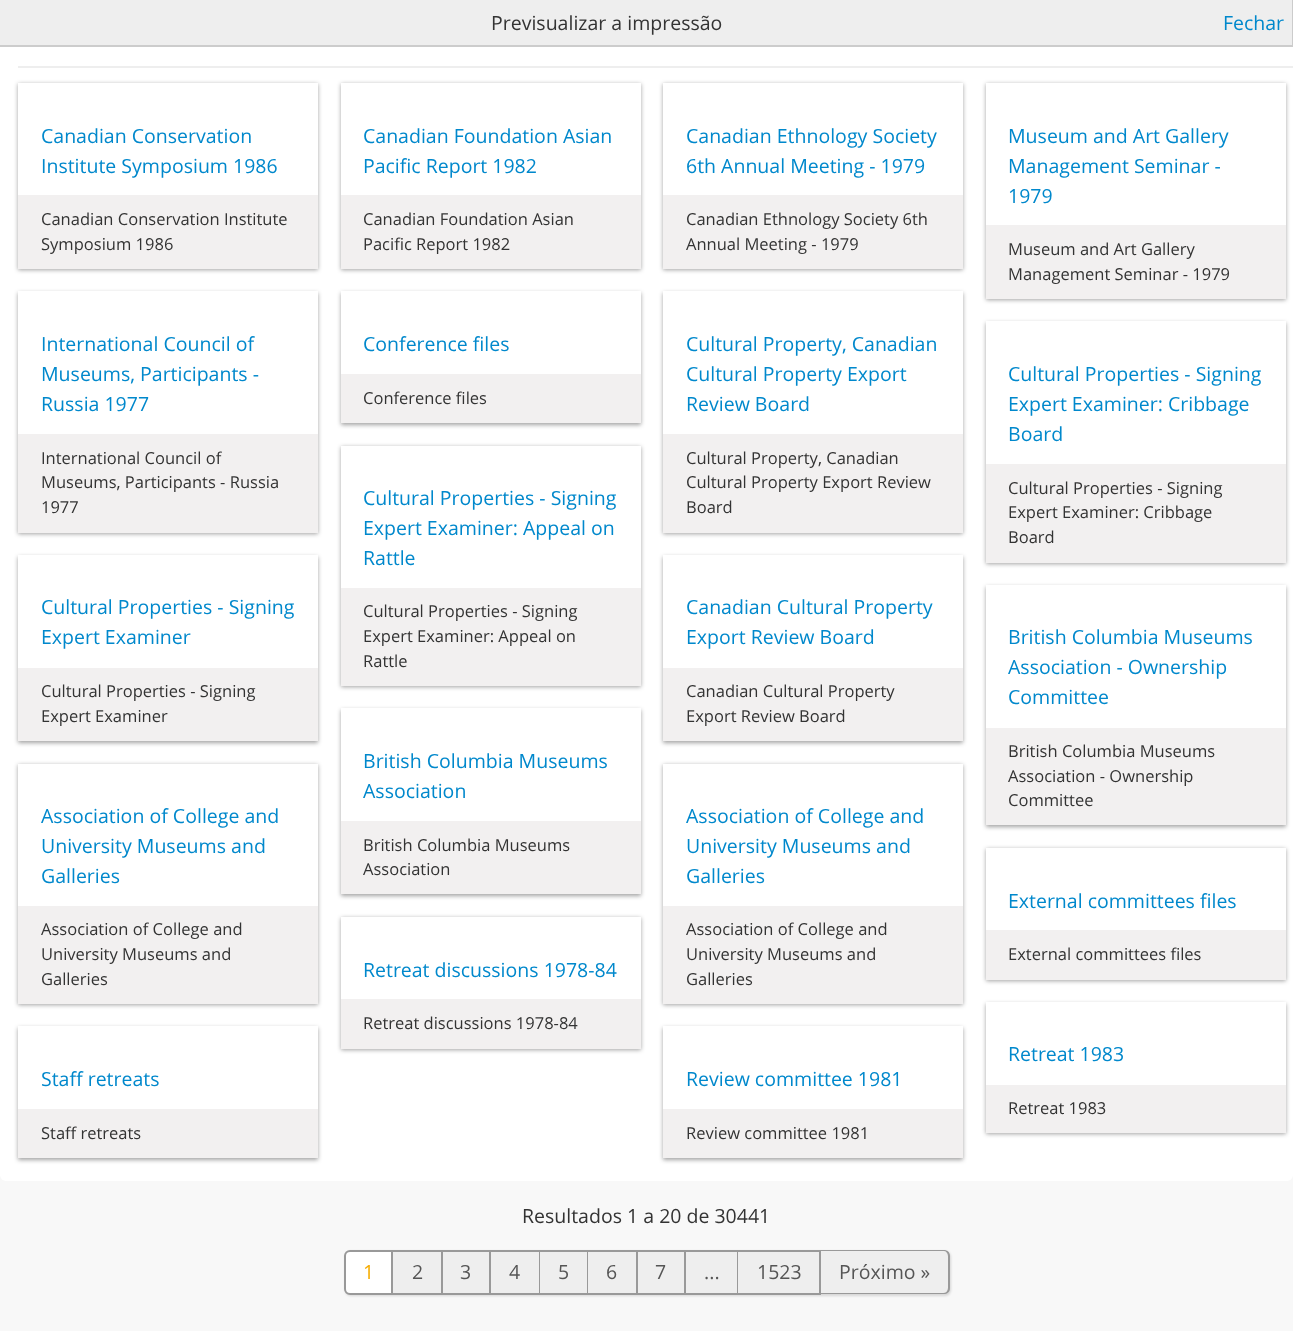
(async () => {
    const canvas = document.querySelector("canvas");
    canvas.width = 1293;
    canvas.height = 1331;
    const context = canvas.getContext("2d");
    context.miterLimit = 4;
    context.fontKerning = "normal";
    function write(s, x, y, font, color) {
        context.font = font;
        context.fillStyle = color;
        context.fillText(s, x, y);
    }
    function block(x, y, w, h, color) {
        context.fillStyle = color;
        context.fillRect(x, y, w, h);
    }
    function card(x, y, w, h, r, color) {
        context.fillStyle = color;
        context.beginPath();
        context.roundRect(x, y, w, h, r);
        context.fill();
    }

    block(0, 0, 1293, 1331, "rgb(248, 248, 248)");
    card(0, 3, 1293, 1178, 6, "rgb(255, 255, 255)");
    block(0, 0, 1292, 45, "rgb(238, 238, 238)");
    block(1292, 0, 1, 47, "rgb(204, 204, 204)");
    block(0, 45, 1293, 2, "rgb(204, 204, 204)");
    write("Previsualizar a impressão", 491, 30, "19.5px Open Sans", "rgb(51, 51, 51)");
    write("Fechar", 1223, 30, "19.5px Open Sans", "rgb(0, 136, 204)");
    block(18, 66, 1275, 2, "rgb(238, 238, 238)");
    context.fillStyle = "rgba(25, 25, 25, 0.4)";
    context.filter = "blur(2px)";
    context.beginPath();
    context.rect(18, 84, 300, 186);
    context.fill();
    context.filter = "none";
    block(18, 83, 300, 112, "rgb(255, 255, 255)");
    write("Canadian Conservation", 41, 143, "19.5px Open Sans", "rgb(0, 136, 204)");
    write("Institute Symposium 1986", 41, 173, "19.5px Open Sans", "rgb(0, 136, 204)");
    block(18, 195, 300, 74, "rgb(242, 240, 240)");
    write("Canadian Conservation Institute", 41, 225, "16.5px Open Sans", "rgb(51, 51, 51)");
    write("Symposium 1986", 41, 250, "16.5px Open Sans", "rgb(51, 51, 51)");
    context.fillStyle = "rgba(25, 25, 25, 0.4)";
    context.filter = "blur(2px)";
    context.beginPath();
    context.rect(341, 84, 300, 186);
    context.fill();
    context.filter = "none";
    block(341, 83, 300, 112, "rgb(255, 255, 255)");
    write("Canadian Foundation Asian", 363, 143, "19.5px Open Sans", "rgb(0, 136, 204)");
    write("Pacific Report 1982", 363, 173, "19.5px Open Sans", "rgb(0, 136, 204)");
    block(341, 195, 300, 74, "rgb(242, 240, 240)");
    write("Canadian Foundation Asian", 363, 225, "16.5px Open Sans", "rgb(51, 51, 51)");
    write("Pacific Report 1982", 363, 250, "16.5px Open Sans", "rgb(51, 51, 51)");
    context.fillStyle = "rgba(25, 25, 25, 0.4)";
    context.filter = "blur(2px)";
    context.beginPath();
    context.rect(663, 84, 300, 186);
    context.fill();
    context.filter = "none";
    block(663, 83, 300, 112, "rgb(255, 255, 255)");
    write("Canadian Ethnology Society", 686, 143, "19.5px Open Sans", "rgb(0, 136, 204)");
    write("6th Annual Meeting - 1979", 686, 173, "19.5px Open Sans", "rgb(0, 136, 204)");
    block(663, 195, 300, 74, "rgb(242, 240, 240)");
    write("Canadian Ethnology Society 6th", 686, 225, "16.5px Open Sans", "rgb(51, 51, 51)");
    write("Annual Meeting - 1979", 686, 250, "16.5px Open Sans", "rgb(51, 51, 51)");
    context.fillStyle = "rgba(25, 25, 25, 0.4)";
    context.filter = "blur(2px)";
    context.beginPath();
    context.rect(986, 84, 300, 216);
    context.fill();
    context.filter = "none";
    block(986, 83, 300, 142, "rgb(255, 255, 255)");
    write("Museum and Art Gallery", 1008, 143, "19.5px Open Sans", "rgb(0, 136, 204)");
    write("Management Seminar -", 1008, 173, "19.5px Open Sans", "rgb(0, 136, 204)");
    write("1979", 1008, 203, "19.5px Open Sans", "rgb(0, 136, 204)");
    block(986, 225, 300, 74, "rgb(242, 240, 240)");
    write("Museum and Art Gallery", 1008, 255, "16.5px Open Sans", "rgb(51, 51, 51)");
    write("Management Seminar - 1979", 1008, 280, "16.5px Open Sans", "rgb(51, 51, 51)");
    context.fillStyle = "rgba(25, 25, 25, 0.4)";
    context.filter = "blur(2px)";
    context.beginPath();
    context.rect(18, 293, 300, 241);
    context.fill();
    context.filter = "none";
    block(18, 291, 300, 143, "rgb(255, 255, 255)");
    write("International Council of", 41, 351, "19.5px Open Sans", "rgb(0, 136, 204)");
    write("Museums, Participants -", 41, 381, "19.5px Open Sans", "rgb(0, 136, 204)");
    write("Russia 1977", 41, 411, "19.5px Open Sans", "rgb(0, 136, 204)");
    block(18, 434, 300, 99, "rgb(242, 240, 240)");
    write("International Council of", 41, 464, "16.5px Open Sans", "rgb(51, 51, 51)");
    write("Museums, Participants - Russia", 41, 488, "16.5px Open Sans", "rgb(51, 51, 51)");
    write("1977", 41, 513, "16.5px Open Sans", "rgb(51, 51, 51)");
    context.fillStyle = "rgba(25, 25, 25, 0.4)";
    context.filter = "blur(2px)";
    context.beginPath();
    context.rect(341, 293, 300, 132);
    context.fill();
    context.filter = "none";
    block(341, 291, 300, 83, "rgb(255, 255, 255)");
    write("Conference files", 363, 351, "19.5px Open Sans", "rgb(0, 136, 204)");
    block(341, 374, 300, 49, "rgb(242, 240, 240)");
    write("Conference files", 363, 404, "16.5px Open Sans", "rgb(51, 51, 51)");
    context.fillStyle = "rgba(25, 25, 25, 0.4)";
    context.filter = "blur(2px)";
    context.beginPath();
    context.rect(663, 293, 300, 241);
    context.fill();
    context.filter = "none";
    block(663, 291, 300, 143, "rgb(255, 255, 255)");
    write("Cultural Property, Canadian", 686, 351, "19.5px Open Sans", "rgb(0, 136, 204)");
    write("Cultural Property Export", 686, 381, "19.5px Open Sans", "rgb(0, 136, 204)");
    write("Review Board", 686, 411, "19.5px Open Sans", "rgb(0, 136, 204)");
    block(663, 434, 300, 99, "rgb(242, 240, 240)");
    write("Cultural Property, Canadian", 686, 464, "16.5px Open Sans", "rgb(51, 51, 51)");
    write("Cultural Property Export Review", 686, 488, "16.5px Open Sans", "rgb(51, 51, 51)");
    write("Board", 686, 513, "16.5px Open Sans", "rgb(51, 51, 51)");
    context.fillStyle = "rgba(25, 25, 25, 0.4)";
    context.filter = "blur(2px)";
    context.beginPath();
    context.rect(986, 323, 300, 241);
    context.fill();
    context.filter = "none";
    block(986, 321, 300, 143, "rgb(255, 255, 255)");
    write("Cultural Properties - Signing", 1008, 381, "19.5px Open Sans", "rgb(0, 136, 204)");
    write("Expert Examiner: Cribbage", 1008, 411, "19.5px Open Sans", "rgb(0, 136, 204)");
    write("Board", 1008, 441, "19.5px Open Sans", "rgb(0, 136, 204)");
    block(986, 464, 300, 99, "rgb(242, 240, 240)");
    write("Cultural Properties - Signing", 1008, 494, "16.5px Open Sans", "rgb(51, 51, 51)");
    write("Expert Examiner: Cribbage", 1008, 518, "16.5px Open Sans", "rgb(51, 51, 51)");
    write("Board", 1008, 543, "16.5px Open Sans", "rgb(51, 51, 51)");
    context.save();
    context.beginPath();
    context.moveTo(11, 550);
    context.lineTo(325, 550);
    context.lineTo(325, 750);
    context.lineTo(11, 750);
    context.closePath();
    context.moveTo(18, 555);
    context.lineTo(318, 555);
    context.lineTo(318, 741);
    context.lineTo(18, 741);
    context.closePath();
    context.clip("evenodd");
    context.fillStyle = "rgba(25, 25, 25, 0.4)";
    context.filter = "blur(2px)";
    context.beginPath();
    context.rect(18, 557, 300, 186);
    context.fill();
    context.filter = "none";
    context.restore();
    write("Cultural Properties - Signing", 41, 614, "19.5px Open Sans", "rgb(0, 136, 204)");
    write("Expert Examiner", 41, 644, "19.5px Open Sans", "rgb(0, 136, 204)");
    block(18, 668, 300, 73, "rgb(242, 240, 240)");
    write("Cultural Properties - Signing", 41, 697, "16.5px Open Sans", "rgb(51, 51, 51)");
    write("Expert Examiner", 41, 722, "16.5px Open Sans", "rgb(51, 51, 51)");
    context.fillStyle = "rgba(25, 25, 25, 0.4)";
    context.filter = "blur(2px)";
    context.beginPath();
    context.rect(341, 447, 300, 240);
    context.fill();
    context.filter = "none";
    block(341, 446, 300, 142, "rgb(255, 255, 255)");
    write("Cultural Properties - Signing", 363, 505, "19.5px Open Sans", "rgb(0, 136, 204)");
    write("Expert Examiner: Appeal on", 363, 535, "19.5px Open Sans", "rgb(0, 136, 204)");
    write("Rattle", 363, 565, "19.5px Open Sans", "rgb(0, 136, 204)");
    block(341, 588, 300, 98, "rgb(242, 240, 240)");
    write("Cultural Properties - Signing", 363, 617, "16.5px Open Sans", "rgb(51, 51, 51)");
    write("Expert Examiner: Appeal on", 363, 642, "16.5px Open Sans", "rgb(51, 51, 51)");
    write("Rattle", 363, 667, "16.5px Open Sans", "rgb(51, 51, 51)");
    context.save();
    context.beginPath();
    context.moveTo(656, 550);
    context.lineTo(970, 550);
    context.lineTo(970, 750);
    context.lineTo(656, 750);
    context.closePath();
    context.moveTo(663, 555);
    context.lineTo(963, 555);
    context.lineTo(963, 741);
    context.lineTo(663, 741);
    context.closePath();
    context.clip("evenodd");
    context.fillStyle = "rgba(25, 25, 25, 0.4)";
    context.filter = "blur(2px)";
    context.beginPath();
    context.rect(663, 557, 300, 186);
    context.fill();
    context.filter = "none";
    context.restore();
    write("Canadian Cultural Property", 686, 614, "19.5px Open Sans", "rgb(0, 136, 204)");
    write("Export Review Board", 686, 644, "19.5px Open Sans", "rgb(0, 136, 204)");
    block(663, 668, 300, 73, "rgb(242, 240, 240)");
    write("Canadian Cultural Property", 686, 697, "16.5px Open Sans", "rgb(51, 51, 51)");
    write("Export Review Board", 686, 722, "16.5px Open Sans", "rgb(51, 51, 51)");
    context.fillStyle = "rgba(25, 25, 25, 0.4)";
    context.filter = "blur(2px)";
    context.beginPath();
    context.rect(986, 587, 300, 240);
    context.fill();
    context.filter = "none";
    block(986, 585, 300, 143, "rgb(255, 255, 255)");
    write("British Columbia Museums", 1008, 644, "19.5px Open Sans", "rgb(0, 136, 204)");
    write("Association - Ownership", 1008, 674, "19.5px Open Sans", "rgb(0, 136, 204)");
    write("Committee", 1008, 704, "19.5px Open Sans", "rgb(0, 136, 204)");
    block(986, 728, 300, 97, "rgb(242, 240, 240)");
    write("British Columbia Museums", 1008, 757, "16.5px Open Sans", "rgb(51, 51, 51)");
    write("Association - Ownership", 1008, 782, "16.5px Open Sans", "rgb(51, 51, 51)");
    write("Committee", 1008, 806, "16.5px Open Sans", "rgb(51, 51, 51)");
    context.fillStyle = "rgba(25, 25, 25, 0.4)";
    context.filter = "blur(2px)";
    context.beginPath();
    context.rect(18, 765, 300, 240);
    context.fill();
    context.filter = "none";
    block(18, 764, 300, 142, "rgb(255, 255, 255)");
    write("Association of College and", 41, 823, "19.5px Open Sans", "rgb(0, 136, 204)");
    write("University Museums and", 41, 853, "19.5px Open Sans", "rgb(0, 136, 204)");
    write("Galleries", 41, 883, "19.5px Open Sans", "rgb(0, 136, 204)");
    block(18, 906, 300, 98, "rgb(242, 240, 240)");
    write("Association of College and", 41, 935, "16.5px Open Sans", "rgb(51, 51, 51)");
    write("University Museums and", 41, 960, "16.5px Open Sans", "rgb(51, 51, 51)");
    write("Galleries", 41, 985, "16.5px Open Sans", "rgb(51, 51, 51)");
    context.fillStyle = "rgba(25, 25, 25, 0.4)";
    context.filter = "blur(2px)";
    context.beginPath();
    context.rect(341, 710, 300, 186);
    context.fill();
    context.filter = "none";
    block(341, 708, 300, 113, "rgb(255, 255, 255)");
    write("British Columbia Museums", 363, 768, "19.5px Open Sans", "rgb(0, 136, 204)");
    write("Association", 363, 798, "19.5px Open Sans", "rgb(0, 136, 204)");
    block(341, 821, 300, 73, "rgb(242, 240, 240)");
    write("British Columbia Museums", 363, 851, "16.5px Open Sans", "rgb(51, 51, 51)");
    write("Association", 363, 875, "16.5px Open Sans", "rgb(51, 51, 51)");
    context.fillStyle = "rgba(25, 25, 25, 0.4)";
    context.filter = "blur(2px)";
    context.beginPath();
    context.rect(663, 765, 300, 240);
    context.fill();
    context.filter = "none";
    block(663, 764, 300, 142, "rgb(255, 255, 255)");
    write("Association of College and", 686, 823, "19.5px Open Sans", "rgb(0, 136, 204)");
    write("University Museums and", 686, 853, "19.5px Open Sans", "rgb(0, 136, 204)");
    write("Galleries", 686, 883, "19.5px Open Sans", "rgb(0, 136, 204)");
    block(663, 906, 300, 98, "rgb(242, 240, 240)");
    write("Association of College and", 686, 935, "16.5px Open Sans", "rgb(51, 51, 51)");
    write("University Museums and", 686, 960, "16.5px Open Sans", "rgb(51, 51, 51)");
    write("Galleries", 686, 985, "16.5px Open Sans", "rgb(51, 51, 51)");
    context.fillStyle = "rgba(25, 25, 25, 0.4)";
    context.filter = "blur(2px)";
    context.beginPath();
    context.rect(986, 849, 300, 132);
    context.fill();
    context.filter = "none";
    block(986, 848, 300, 82, "rgb(255, 255, 255)");
    write("External committees files", 1008, 908, "19.5px Open Sans", "rgb(0, 136, 204)");
    block(986, 930, 300, 50, "rgb(242, 240, 240)");
    write("External committees files", 1008, 960, "16.5px Open Sans", "rgb(51, 51, 51)");
    context.fillStyle = "rgba(25, 25, 25, 0.4)";
    context.filter = "blur(2px)";
    context.beginPath();
    context.rect(341, 918, 300, 132);
    context.fill();
    context.filter = "none";
    block(341, 917, 300, 82, "rgb(255, 255, 255)");
    write("Retreat discussions 1978-84", 363, 977, "19.5px Open Sans", "rgb(0, 136, 204)");
    block(341, 999, 300, 50, "rgb(242, 240, 240)");
    write("Retreat discussions 1978-84", 363, 1029, "16.5px Open Sans", "rgb(51, 51, 51)");
    context.save();
    context.beginPath();
    context.moveTo(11, 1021);
    context.lineTo(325, 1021);
    context.lineTo(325, 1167);
    context.lineTo(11, 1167);
    context.closePath();
    context.moveTo(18, 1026);
    context.lineTo(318, 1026);
    context.lineTo(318, 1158);
    context.lineTo(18, 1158);
    context.closePath();
    context.clip("evenodd");
    context.fillStyle = "rgba(25, 25, 25, 0.4)";
    context.filter = "blur(2px)";
    context.beginPath();
    context.rect(18, 1028, 300, 132);
    context.fill();
    context.filter = "none";
    context.restore();
    write("Staff retreats", 41, 1086, "19.5px Open Sans", "rgb(0, 136, 204)");
    block(18, 1109, 300, 49, "rgb(242, 240, 240)");
    write("Staff retreats", 41, 1139, "16.5px Open Sans", "rgb(51, 51, 51)");
    context.save();
    context.beginPath();
    context.moveTo(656, 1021);
    context.lineTo(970, 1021);
    context.lineTo(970, 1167);
    context.lineTo(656, 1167);
    context.closePath();
    context.moveTo(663, 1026);
    context.lineTo(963, 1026);
    context.lineTo(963, 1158);
    context.lineTo(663, 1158);
    context.closePath();
    context.clip("evenodd");
    context.fillStyle = "rgba(25, 25, 25, 0.4)";
    context.filter = "blur(2px)";
    context.beginPath();
    context.rect(663, 1028, 300, 132);
    context.fill();
    context.filter = "none";
    context.restore();
    write("Review committee 1981", 686, 1086, "19.5px Open Sans", "rgb(0, 136, 204)");
    block(663, 1109, 300, 49, "rgb(242, 240, 240)");
    write("Review committee 1981", 686, 1139, "16.5px Open Sans", "rgb(51, 51, 51)");
    context.fillStyle = "rgba(25, 25, 25, 0.4)";
    context.filter = "blur(2px)";
    context.beginPath();
    context.rect(986, 1004, 300, 130);
    context.fill();
    context.filter = "none";
    block(986, 1002, 300, 83, "rgb(255, 255, 255)");
    write("Retreat 1983", 1008, 1061, "19.5px Open Sans", "rgb(0, 136, 204)");
    block(986, 1085, 300, 48, "rgb(242, 240, 240)");
    write("Retreat 1983", 1008, 1114, "16.5px Open Sans", "rgb(51, 51, 51)");
    write("Resultados 1 a 20 de 30441", 522, 1223, "19.5px Open Sans", "rgb(51, 51, 51)");
    context.fillStyle = "rgba(25, 25, 25, 0.15)";
    context.filter = "blur(1px)";
    context.beginPath();
    context.roundRect(345, 1251, 606, 45, 6);
    context.fill();
    context.filter = "none";
    context.fillStyle = "rgb(255, 255, 255)";
    context.beginPath();
    context.roundRect(345, 1251, 47, 43, [5, 0, 0, 5]);
    context.fill();
    context.strokeStyle = "rgb(153, 153, 153)";
    context.lineWidth = 2;
    context.stroke();
    write("1", 363, 1279, "19.5px Open Sans", "rgb(246, 172, 0)");
    block(393, 1252, 48, 41, "rgb(238, 238, 238)");
    block(393, 1250, 428, 2, "rgb(153, 153, 153)");
    block(441, 1250, 2, 45, "rgb(153, 153, 153)");
    block(393, 1293, 50, 2, "rgb(153, 153, 153)");
    write("2", 412, 1279, "19.5px Open Sans", "rgb(85, 85, 85)");
    block(443, 1252, 46, 41, "rgb(238, 238, 238)");
    block(489, 1250, 2, 45, "rgb(153, 153, 153)");
    block(443, 1293, 48, 2, "rgb(153, 153, 153)");
    write("3", 460, 1279, "19.5px Open Sans", "rgb(85, 85, 85)");
    block(491, 1252, 48, 41, "rgb(238, 238, 238)");
    block(539, 1250, 1, 45, "rgb(153, 153, 153)");
    block(491, 1293, 49, 2, "rgb(153, 153, 153)");
    write("4", 509, 1279, "19.5px Open Sans", "rgb(85, 85, 85)");
    block(540, 1252, 47, 41, "rgb(238, 238, 238)");
    block(587, 1250, 1, 45, "rgb(153, 153, 153)");
    block(540, 1293, 48, 2, "rgb(153, 153, 153)");
    write("5", 558, 1279, "19.5px Open Sans", "rgb(85, 85, 85)");
    block(588, 1252, 48, 41, "rgb(238, 238, 238)");
    block(636, 1250, 2, 45, "rgb(153, 153, 153)");
    block(588, 1293, 50, 2, "rgb(153, 153, 153)");
    write("6", 606, 1279, "19.5px Open Sans", "rgb(85, 85, 85)");
    block(638, 1252, 46, 41, "rgb(238, 238, 238)");
    block(684, 1250, 2, 45, "rgb(153, 153, 153)");
    block(638, 1293, 48, 2, "rgb(153, 153, 153)");
    write("7", 655, 1279, "19.5px Open Sans", "rgb(85, 85, 85)");
    block(686, 1252, 51, 41, "rgb(238, 238, 238)");
    block(737, 1250, 1, 45, "rgb(153, 153, 153)");
    block(686, 1293, 52, 2, "rgb(153, 153, 153)");
    write("...", 704, 1279, "19.5px Open Sans", "rgb(85, 85, 85)");
    block(738, 1252, 81, 41, "rgb(238, 238, 238)");
    block(819, 1250, 2, 45, "rgb(153, 153, 153)");
    block(738, 1293, 83, 2, "rgb(153, 153, 153)");
    write("1523", 757, 1279, "19.5px Open Sans", "rgb(85, 85, 85)");
    context.fillStyle = "rgb(238, 238, 238)";
    context.beginPath();
    context.roundRect(821, 1251, 127, 42, [0, 5, 5, 0]);
    context.fill();
    context.fillStyle = "rgb(153, 153, 153)";
    context.beginPath();
    context.moveTo(820, 1250);
    context.lineTo(944, 1250);
    context.bezierCurveTo(947, 1250, 950, 1252, 950, 1256);
    context.lineTo(950, 1288);
    context.bezierCurveTo(950, 1292, 947, 1294, 944, 1294);
    context.lineTo(820, 1294);
    context.closePath();
    context.moveTo(820, 1251);
    context.lineTo(944, 1251);
    context.bezierCurveTo(946, 1251, 948, 1253, 948, 1256);
    context.lineTo(948, 1288);
    context.bezierCurveTo(948, 1291, 946, 1293, 944, 1293);
    context.lineTo(820, 1293);
    context.closePath();
    context.fill("evenodd");
    write("Próximo »", 839, 1279, "19.5px Open Sans", "rgb(85, 85, 85)");
})();
